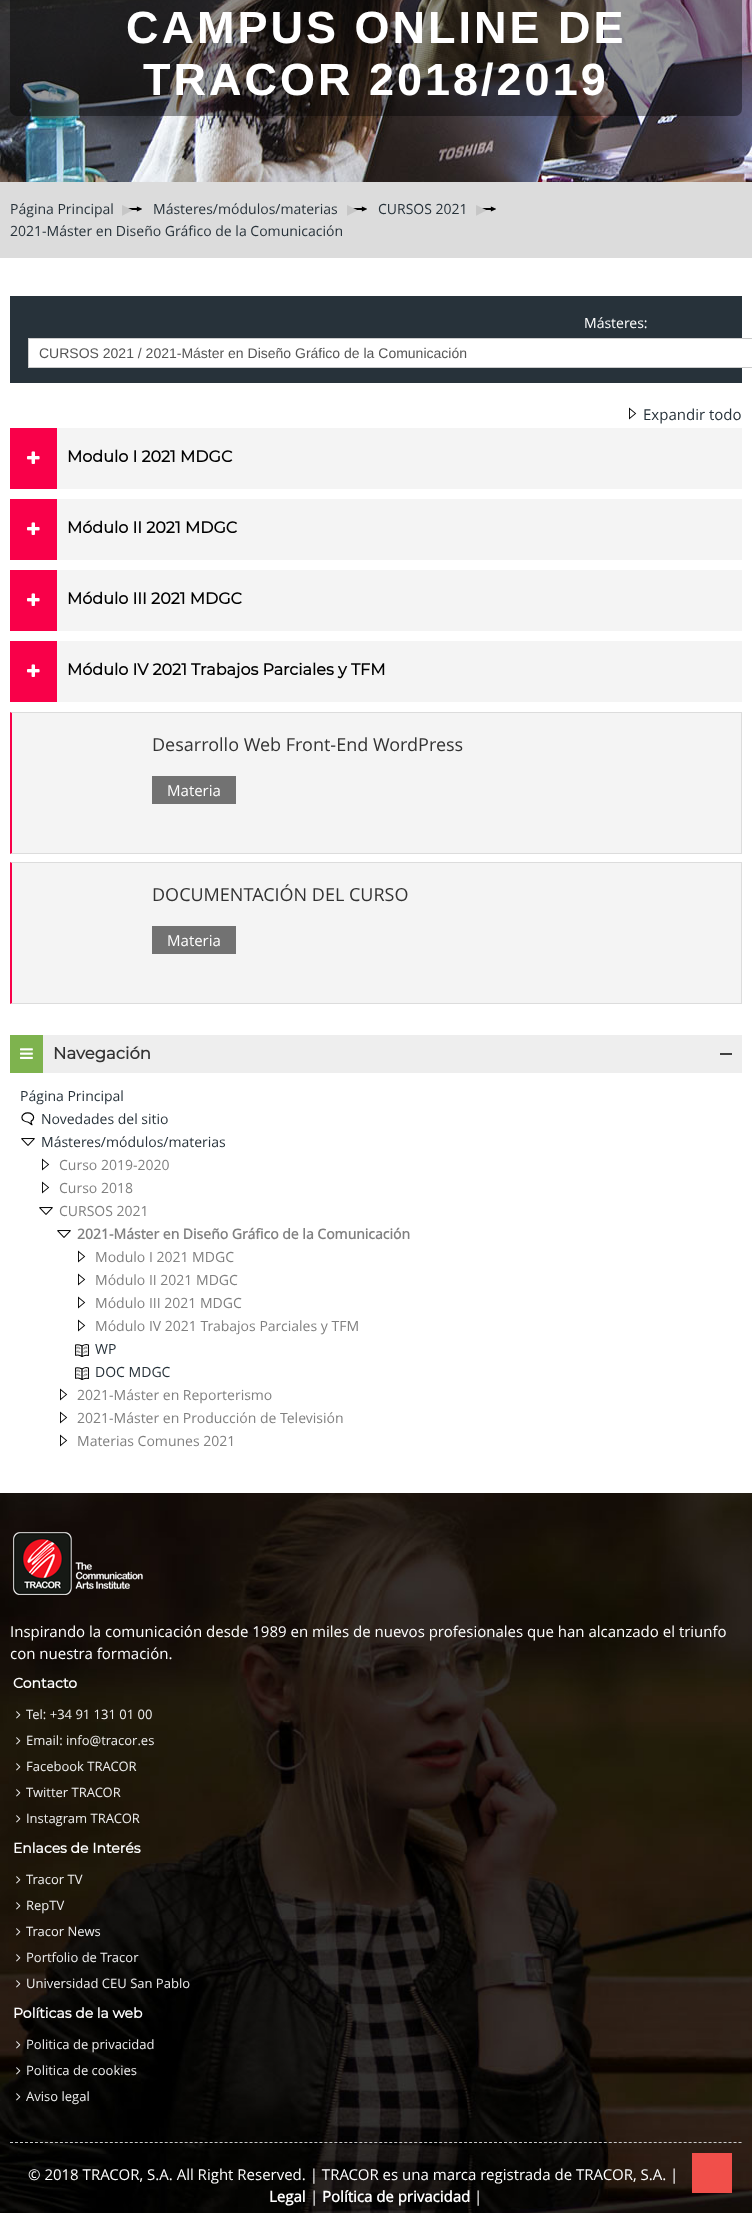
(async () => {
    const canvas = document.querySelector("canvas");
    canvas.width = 752;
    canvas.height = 2213;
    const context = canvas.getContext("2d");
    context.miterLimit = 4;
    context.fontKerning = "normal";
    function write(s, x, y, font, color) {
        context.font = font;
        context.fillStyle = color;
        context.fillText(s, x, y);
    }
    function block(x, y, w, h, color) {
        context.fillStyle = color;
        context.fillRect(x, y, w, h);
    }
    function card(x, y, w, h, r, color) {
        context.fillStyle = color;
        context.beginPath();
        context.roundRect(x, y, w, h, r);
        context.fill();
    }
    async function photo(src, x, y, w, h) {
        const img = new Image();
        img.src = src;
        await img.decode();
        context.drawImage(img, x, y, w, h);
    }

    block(0, 0, 752, 2213, "rgb(255, 255, 255)");
    await photo("media/1.png", 0, 0, 752, 182);
    card(10, -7, 732, 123, 7, "rgba(0, 0, 0, 0.4)");
    context.letterSpacing = "3px";
    write("CAMPUS ONLINE DE", 126, 43, "bold 45px Liberation Sans", "rgb(255, 255, 255)");
    write("TRACOR 2018/2019", 143, 95, "bold 45px Liberation Sans", "rgb(255, 255, 255)");
    block(0, 182, 752, 76, "rgb(220, 220, 220)");
    context.letterSpacing = "0px";
    write("Página Principal", 10, 214, "14px Open Sans", "rgb(39, 50, 58)");
    await photo("media/2.png", 128, 206, 14, 6);
    write("▶︎", 122, 214, "14px DejaVu Sans", "rgb(198, 198, 198)");
    write("Másteres/módulos/materias", 153, 214, "14px Open Sans", "rgb(39, 50, 58)");
    await photo("media/2.png", 353, 206, 14, 6);
    write("▶︎", 347, 214, "14px DejaVu Sans", "rgb(198, 198, 198)");
    write("CURSOS 2021", 378, 214, "14px Open Sans", "rgb(39, 50, 58)");
    await photo("media/2.png", 482, 206, 14, 6);
    write("▶︎", 476, 214, "14px DejaVu Sans", "rgb(198, 198, 198)");
    write("2021-Máster en Diseño Gráfico de la Comunicación", 10, 236, "14px Open Sans", "rgb(39, 50, 58)");
    block(10, 296, 732, 87, "rgb(39, 50, 58)");
    write("Másteres:", 584, 328, "14px Open Sans", "rgb(255, 255, 255)");
    block(29, 339, 713, 28, "rgb(255, 255, 255)");
    context.strokeStyle = "rgb(204, 204, 204)";
    context.strokeRect(28.5, 338.5, 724, 29);
    write("CURSOS 2021 / 2021-Máster en Diseño Gráfico de la Comunicación", 39, 358, "14px Liberation Sans", "rgb(85, 85, 85)");
    await photo("media/3.png", 629, 407, 8, 13);
    write("Expandir todo", 643, 420, "15px Open Sans", "rgb(39, 50, 58)");
    block(57, 428, 685, 61, "rgb(244, 244, 244)");
    block(10, 428, 47, 61, "rgb(249, 0, 73)");
    await photo("media/4.png", 27, 451, 13, 13);
    write("Modulo I 2021 MDGC", 67, 462, "bold 16px Montserrat", "rgb(0, 0, 0)");
    block(57, 499, 685, 61, "rgb(244, 244, 244)");
    block(10, 499, 47, 61, "rgb(249, 0, 73)");
    await photo("media/4.png", 27, 522, 13, 13);
    write("Módulo II 2021 MDGC", 67, 533, "bold 16px Montserrat", "rgb(0, 0, 0)");
    block(57, 570, 685, 61, "rgb(244, 244, 244)");
    block(10, 570, 47, 61, "rgb(249, 0, 73)");
    await photo("media/4.png", 27, 593, 13, 13);
    write("Módulo III 2021 MDGC", 67, 604, "bold 16px Montserrat", "rgb(0, 0, 0)");
    block(57, 641, 685, 61, "rgb(244, 244, 244)");
    block(10, 641, 47, 61, "rgb(249, 0, 73)");
    await photo("media/4.png", 27, 664, 13, 13);
    write("Módulo IV 2021 Trabajos Parciales y TFM", 67, 675, "bold 16px Montserrat", "rgb(0, 0, 0)");
    block(12, 713, 729, 140, "rgb(244, 244, 244)");
    context.fillStyle = "rgb(220, 220, 220)";
    context.beginPath();
    context.moveTo(10, 712);
    context.lineTo(742, 712);
    context.lineTo(741, 713);
    context.lineTo(12, 713);
    context.closePath();
    context.fill();
    block(741, 712, 1, 142, "rgb(220, 220, 220)");
    context.beginPath();
    context.moveTo(742, 854);
    context.lineTo(10, 854);
    context.lineTo(12, 853);
    context.lineTo(741, 853);
    context.closePath();
    context.fill();
    context.fillStyle = "rgb(249, 0, 73)";
    context.beginPath();
    context.moveTo(10, 854);
    context.lineTo(10, 712);
    context.lineTo(12, 713);
    context.lineTo(12, 853);
    context.closePath();
    context.fill();
    write("Desarrollo Web Front-End WordPress", 152, 751, "18px Open Sans", "rgb(51, 51, 51)");
    block(152, 776, 84, 28, "rgb(114, 114, 114)");
    write("Materia", 167, 796, "15px Open Sans", "rgb(255, 255, 255)");
    block(12, 863, 729, 140, "rgb(244, 244, 244)");
    context.fillStyle = "rgb(220, 220, 220)";
    context.beginPath();
    context.moveTo(10, 862);
    context.lineTo(742, 862);
    context.lineTo(741, 863);
    context.lineTo(12, 863);
    context.closePath();
    context.fill();
    block(741, 862, 1, 142, "rgb(220, 220, 220)");
    context.beginPath();
    context.moveTo(742, 1004);
    context.lineTo(10, 1004);
    context.lineTo(12, 1003);
    context.lineTo(741, 1003);
    context.closePath();
    context.fill();
    context.fillStyle = "rgb(249, 0, 73)";
    context.beginPath();
    context.moveTo(10, 1004);
    context.lineTo(10, 862);
    context.lineTo(12, 863);
    context.lineTo(12, 1003);
    context.closePath();
    context.fill();
    write("DOCUMENTACIÓN DEL CURSO", 152, 901, "18px Open Sans", "rgb(51, 51, 51)");
    block(152, 926, 84, 28, "rgb(114, 114, 114)");
    write("Materia", 167, 946, "15px Open Sans", "rgb(255, 255, 255)");
    block(43, 1035, 699, 38, "rgb(238, 238, 238)");
    block(10, 1035, 33, 38, "rgb(126, 179, 78)");
    await photo("media/5.png", 20, 1048, 13, 11);
    write("Navegación", 53, 1059, "bold 16.5px Montserrat", "rgb(51, 51, 51)");
    block(720, 1053, 12, 2, "rgb(65, 65, 65)");
    write("Página Principal", 20, 1101, "14px Open Sans", "rgb(39, 50, 58)");
    await photo("media/6.png", 21, 1112, 14, 14);
    write("Novedades del sitio", 41, 1124, "14px Open Sans", "rgb(39, 50, 58)");
    await photo("media/7.png", 21, 1138, 14, 8);
    write("Másteres/módulos/materias", 41, 1147, "14px Open Sans", "rgb(39, 50, 58)");
    await photo("media/3.png", 42, 1158, 8, 13);
    write("Curso 2019-2020", 59, 1170, "14px Open Sans", "rgb(128, 128, 128)");
    await photo("media/3.png", 42, 1181, 8, 13);
    write("Curso 2018", 59, 1193, "14px Open Sans", "rgb(128, 128, 128)");
    await photo("media/7.png", 39, 1207, 14, 8);
    write("CURSOS 2021", 59, 1216, "14px Open Sans", "rgb(128, 128, 128)");
    await photo("media/7.png", 57, 1230, 14, 8);
    write("2021-Máster en Diseño Gráfico de la Comunicación", 77, 1239, "bold 14px Open Sans", "rgb(128, 128, 128)");
    await photo("media/3.png", 78, 1250, 8, 13);
    write("Modulo I 2021 MDGC", 95, 1262, "14px Open Sans", "rgb(128, 128, 128)");
    await photo("media/3.png", 78, 1273, 8, 13);
    write("Módulo II 2021 MDGC", 95, 1285, "14px Open Sans", "rgb(128, 128, 128)");
    await photo("media/3.png", 78, 1296, 8, 13);
    write("Módulo III 2021 MDGC", 95, 1308, "14px Open Sans", "rgb(128, 128, 128)");
    await photo("media/3.png", 78, 1319, 8, 13);
    write("Módulo IV 2021 Trabajos Parciales y TFM", 95, 1331, "14px Open Sans", "rgb(128, 128, 128)");
    await photo("media/8.png", 75, 1344, 14, 13);
    write("WP", 95, 1354, "14px Open Sans", "rgb(39, 50, 58)");
    await photo("media/9.png", 75, 1367, 14, 13);
    write("DOC MDGC", 95, 1377, "14px Open Sans", "rgb(39, 50, 58)");
    await photo("media/3.png", 60, 1388, 8, 13);
    write("2021-Máster en Reporterismo", 77, 1400, "14px Open Sans", "rgb(128, 128, 128)");
    await photo("media/3.png", 60, 1411, 8, 13);
    write("2021-Máster en Producción de Televisión", 77, 1423, "14px Open Sans", "rgb(128, 128, 128)");
    await photo("media/3.png", 60, 1434, 8, 13);
    write("Materias Comunes 2021", 77, 1446, "14px Open Sans", "rgb(128, 128, 128)");
    await photo("media/10.png", 0, 1493, 752, 720);
    await photo("media/11.png", 13, 1532, 130, 63);
    write("Inspirando la comunicación desde 1989 en miles de nuevos profesionales que han alcanzado el triunfo", 10, 1637, "15px Open Sans", "rgb(255, 255, 255)");
    write("con nuestra formación.", 10, 1659, "15px Open Sans", "rgb(255, 255, 255)");
    write("Contacto", 13, 1688, "bold 14px Montserrat", "rgb(255, 255, 255)");
    await photo("media/12.png", 16, 1711, 5, 8);
    write("Tel: +34 91 131 01 00", 26, 1719, "13px Open Sans", "rgb(238, 238, 238)");
    await photo("media/13.png", 16, 1737, 5, 8);
    write("Email: info@tracor.es", 26, 1745, "13px Open Sans", "rgb(238, 238, 238)");
    await photo("media/14.png", 16, 1763, 5, 8);
    write("Facebook TRACOR", 26, 1771, "13px Open Sans", "rgb(238, 238, 238)");
    await photo("media/15.png", 16, 1789, 5, 8);
    write("Twitter TRACOR", 26, 1797, "13px Open Sans", "rgb(238, 238, 238)");
    await photo("media/16.png", 16, 1815, 5, 8);
    write("Instagram TRACOR", 26, 1823, "13px Open Sans", "rgb(238, 238, 238)");
    write("Enlaces de Interés", 13, 1853, "bold 14px Montserrat", "rgb(255, 255, 255)");
    await photo("media/17.png", 16, 1876, 5, 8);
    write("Tracor TV", 26, 1884, "13px Open Sans", "rgb(238, 238, 238)");
    await photo("media/18.png", 16, 1902, 5, 8);
    write("RepTV", 26, 1910, "13px Open Sans", "rgb(238, 238, 238)");
    await photo("media/19.png", 16, 1928, 5, 8);
    write("Tracor News", 26, 1936, "13px Open Sans", "rgb(238, 238, 238)");
    await photo("media/20.png", 16, 1954, 5, 8);
    write("Portfolio de Tracor", 26, 1962, "13px Open Sans", "rgb(238, 238, 238)");
    await photo("media/21.png", 16, 1980, 5, 8);
    write("Universidad CEU San Pablo", 26, 1988, "13px Open Sans", "rgb(238, 238, 238)");
    write("Políticas de la web", 13, 2018, "bold 14px Montserrat", "rgb(255, 255, 255)");
    await photo("media/22.png", 16, 2041, 5, 8);
    write("Politica de privacidad", 26, 2049, "13px Open Sans", "rgb(238, 238, 238)");
    await photo("media/23.png", 16, 2067, 5, 8);
    write("Politica de cookies", 26, 2075, "13px Open Sans", "rgb(238, 238, 238)");
    await photo("media/24.png", 16, 2093, 5, 8);
    write("Aviso legal", 26, 2101, "13px Open Sans", "rgb(238, 238, 238)");
    context.beginPath();
    context.moveTo(10, 2142.5);
    context.lineTo(742, 2142.5);
    context.setLineDash([3, 1.99]);
    context.stroke();
    write("© 2018 TRACOR, S.A. All Right Reserved. | TRACOR es una marca registrada de TRACOR, S.A. |", 28, 2180, "15px Open Sans", "rgb(255, 255, 255)");
    write("Legal", 269, 2202, "bold 15px Open Sans", "rgb(255, 255, 255)");
    write("|", 310, 2202, "15px Open Sans", "rgb(255, 255, 255)");
    write("Política de privacidad", 322, 2202, "bold 15px Open Sans", "rgb(255, 255, 255)");
    write("|", 474, 2202, "15px Open Sans", "rgb(255, 255, 255)");
    block(692, 2153, 40, 40, "rgb(241, 79, 74)");
})();
